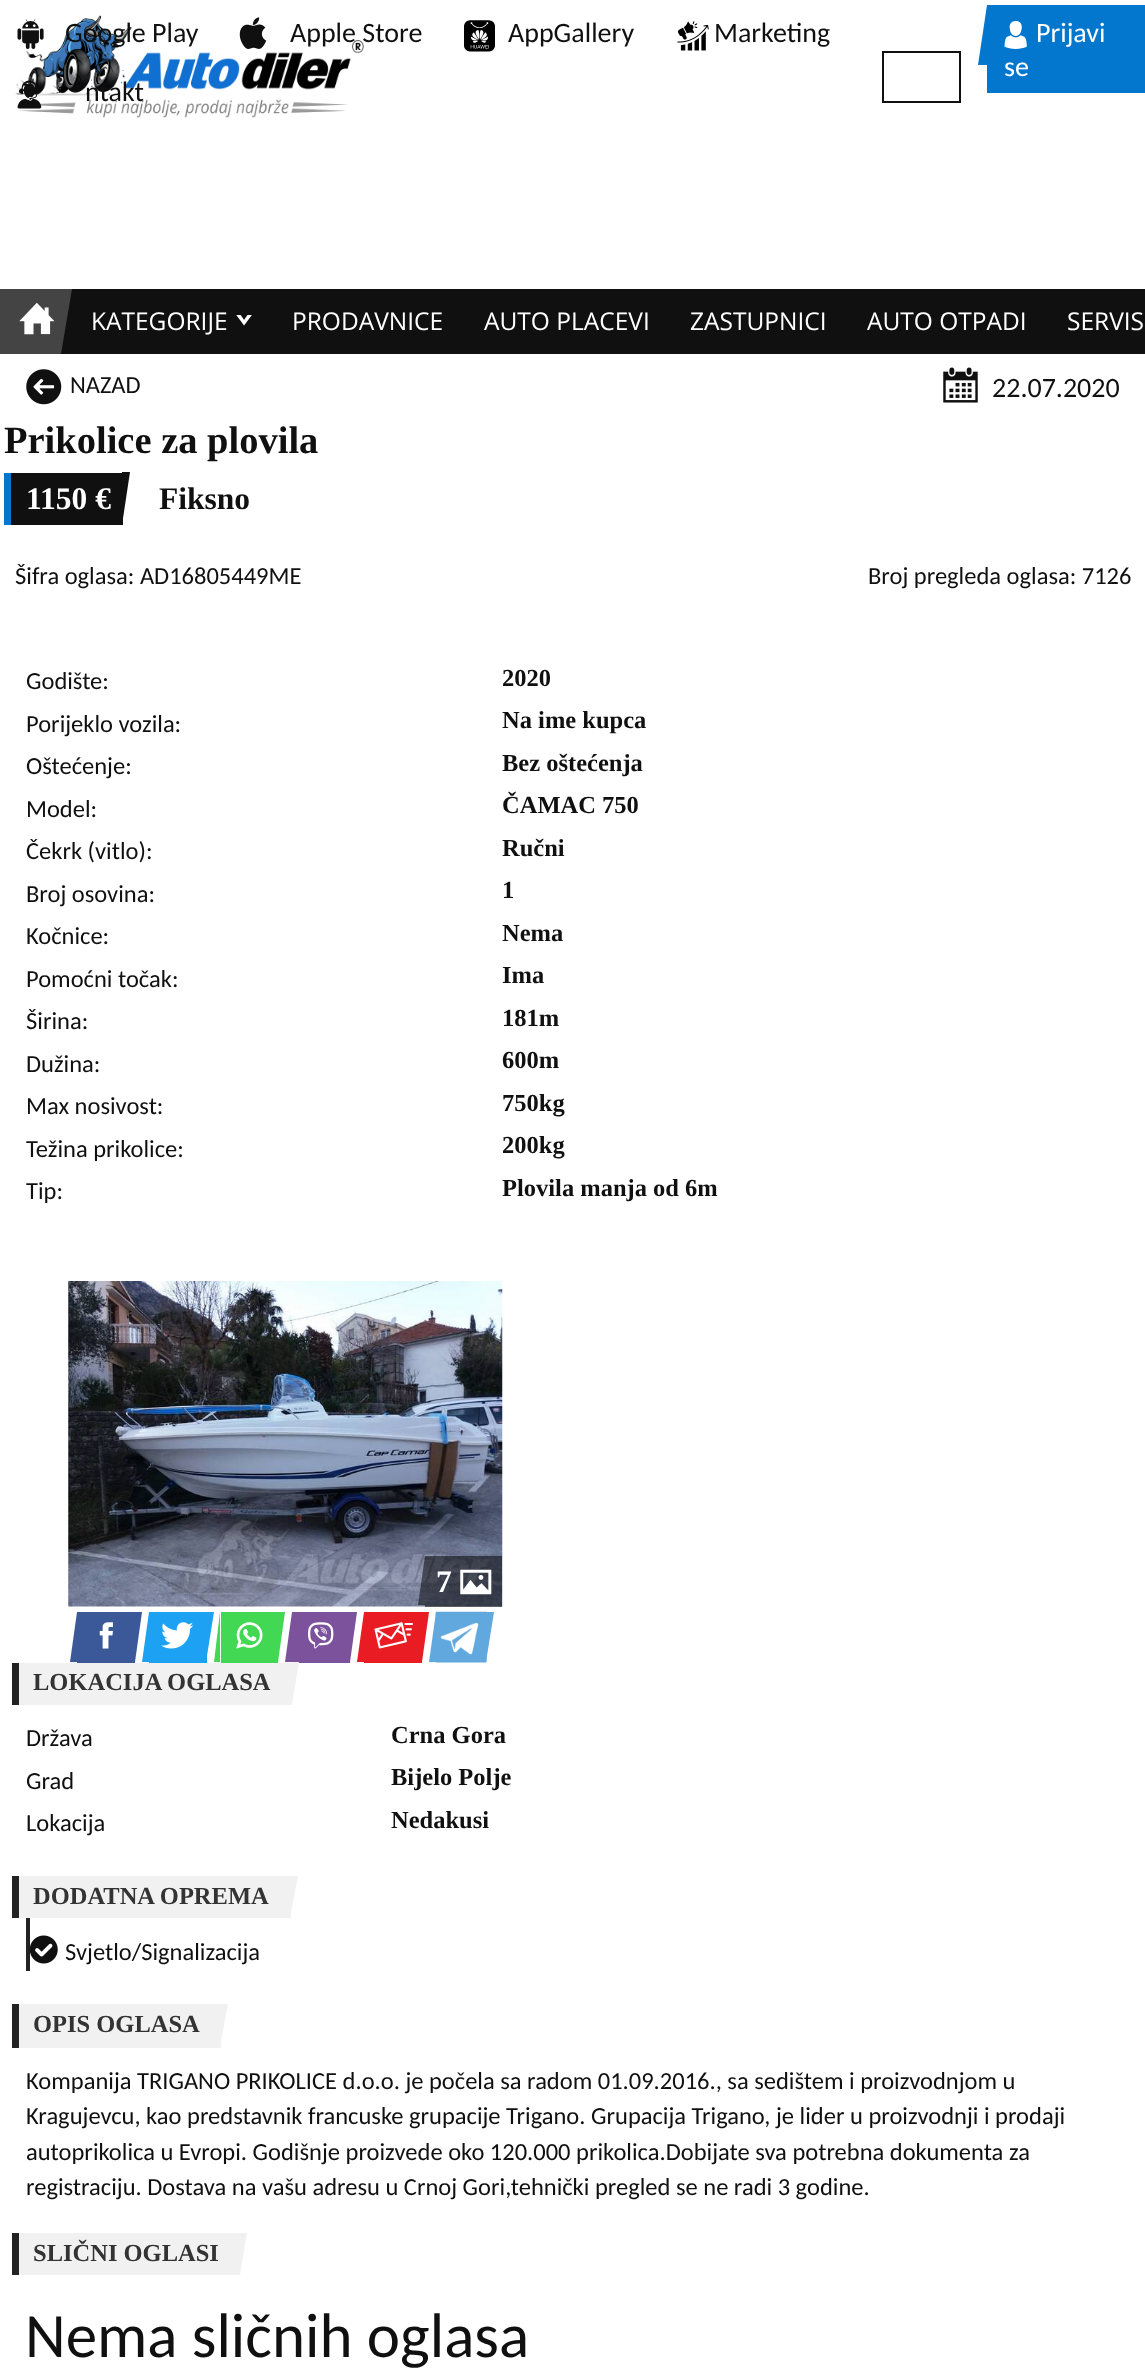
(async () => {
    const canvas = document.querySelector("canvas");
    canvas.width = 1145;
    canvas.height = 2376;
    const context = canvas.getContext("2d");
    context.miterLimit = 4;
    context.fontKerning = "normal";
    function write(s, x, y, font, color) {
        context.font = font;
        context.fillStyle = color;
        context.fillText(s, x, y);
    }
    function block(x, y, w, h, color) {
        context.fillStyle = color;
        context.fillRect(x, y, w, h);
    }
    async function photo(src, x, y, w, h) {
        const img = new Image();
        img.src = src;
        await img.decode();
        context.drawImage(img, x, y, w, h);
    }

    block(0, 0, 1145, 2376, "rgb(255, 255, 255)");
    await photo("media/1.png", 15, 15, 349, 103);
    await photo("media/2.png", 17, 19, 27, 30);
    write("Google Play", 65, 42, "28px Carlito", "rgb(16, 16, 16)");
    await photo("media/3.png", 239, 17, 28, 32);
    write("Apple Store", 290, 42, "28px Carlito", "rgb(16, 16, 16)");
    await photo("media/4.png", 464, 20, 31, 32);
    write("AppGallery", 508, 42, "28px Carlito", "rgb(16, 16, 16)");
    await photo("media/5.png", 677, 21, 32, 30);
    write("Marketing", 714, 42, "28px Carlito", "rgb(16, 16, 16)");
    await photo("media/6.png", 17, 80, 25, 29);
    write("ntakt", 85, 101, "28px Carlito", "rgb(16, 16, 16)");
    context.strokeStyle = "rgb(16, 16, 16)";
    context.lineWidth = 2;
    context.strokeRect(883, 52, 77, 50);
    block(987, 5, 158, 88, "rgb(3, 119, 205)");
    context.beginPath();
    context.moveTo(987, 65);
    context.lineTo(978, 65);
    context.lineTo(987, 5);
    context.closePath();
    context.fill();
    await photo("media/7.png", 1004, 21, 23, 28);
    write("Prijavi", 1036, 42, "28px Carlito", "rgb(255, 255, 255)");
    write("se", 1004, 76, "28px Carlito", "rgb(255, 255, 255)");
    block(61, 289, 1084, 65, "rgb(16, 16, 16)");
    block(0, 289, 61, 65, "rgb(68, 68, 68)");
    await photo("media/8.png", 19, 302, 36, 33);
    context.beginPath();
    context.moveTo(61, 289);
    context.lineTo(72, 289);
    context.lineTo(61, 354);
    context.closePath();
    context.fill();
    write("KATEGORIJE", 91, 330, "24.5px Open Sans", "rgb(255, 255, 255)");
    await photo("media/9.png", 236, 315, 16, 11);
    write("PRODAVNICE", 292, 330, "24.5px Open Sans", "rgb(255, 255, 255)");
    write("AUTO PLACEVI", 484, 330, "24.5px Open Sans", "rgb(255, 255, 255)");
    write("ZASTUPNICI", 690, 330, "24.5px Open Sans", "rgb(255, 255, 255)");
    write("AUTO OTPADI", 867, 330, "24.5px Open Sans", "rgb(255, 255, 255)");
    write("SERVIS", 1067, 330, "24.5px Open Sans", "rgb(255, 255, 255)");
    await photo("media/10.png", 26, 369, 36, 36);
    write("NAZAD", 70, 393, "24.5px Carlito", "rgb(16, 16, 16)");
    await photo("media/11.png", 943, 367, 35, 36);
    write("22.07.2020", 992, 397, "28px Carlito", "rgb(16, 16, 16)");
    write("Prikolice za plovila", 4, 453, "bold 38.5px Liberation Serif", "rgb(16, 16, 16)");
    block(11, 473, 112, 52, "rgb(16, 16, 16)");
    block(4, 473, 7, 52, "rgb(3, 119, 205)");
    write("1150 €", 26, 509, "bold 31.5px Liberation Serif", "rgb(255, 255, 255)");
    context.fillStyle = "rgb(16, 16, 16)";
    context.beginPath();
    context.moveTo(122, 472);
    context.lineTo(130, 472);
    context.lineTo(122, 525);
    context.closePath();
    context.fill();
    write("Fiksno", 159, 509, "bold 31.5px Liberation Serif", "rgb(16, 16, 16)");
    write("Šifra oglasa: AD16805449ME", 15, 584, "24.5px Carlito", "rgb(16, 16, 16)");
    write("Broj pregleda oglasa: 7126", 868, 584, "24.5px Carlito", "rgb(16, 16, 16)");
    write("Godište:", 26, 689, "24.5px Carlito", "rgb(16, 16, 16)");
    write("2020", 502, 686, "bold 24.5px Liberation Serif", "rgb(16, 16, 16)");
    write("Porijeklo vozila:", 26, 732, "24.5px Carlito", "rgb(16, 16, 16)");
    write("Na ime kupca", 502, 728, "bold 24.5px Liberation Serif", "rgb(16, 16, 16)");
    write("Oštećenje:", 26, 774, "24.5px Carlito", "rgb(16, 16, 16)");
    write("Bez oštećenja", 502, 771, "bold 24.5px Liberation Serif", "rgb(16, 16, 16)");
    write("Model:", 26, 817, "24.5px Carlito", "rgb(16, 16, 16)");
    write("ČAMAC 750", 502, 813, "bold 24.5px Liberation Serif", "rgb(16, 16, 16)");
    write("Čekrk (vitlo):", 26, 859, "24.5px Carlito", "rgb(16, 16, 16)");
    write("Ručni", 502, 856, "bold 24.5px Liberation Serif", "rgb(16, 16, 16)");
    write("Broj osovina:", 26, 902, "24.5px Carlito", "rgb(16, 16, 16)");
    write("1", 502, 898, "bold 24.5px Liberation Serif", "rgb(16, 16, 16)");
    write("Kočnice:", 26, 944, "24.5px Carlito", "rgb(16, 16, 16)");
    write("Nema", 502, 941, "bold 24.5px Liberation Serif", "rgb(16, 16, 16)");
    write("Pomoćni točak:", 26, 987, "24.5px Carlito", "rgb(16, 16, 16)");
    write("Ima", 502, 983, "bold 24.5px Liberation Serif", "rgb(16, 16, 16)");
    write("Širina:", 26, 1029, "24.5px Carlito", "rgb(16, 16, 16)");
    write("181m", 502, 1026, "bold 24.5px Liberation Serif", "rgb(16, 16, 16)");
    write("Dužina:", 26, 1072, "24.5px Carlito", "rgb(16, 16, 16)");
    write("600m", 502, 1068, "bold 24.5px Liberation Serif", "rgb(16, 16, 16)");
    write("Max nosivost:", 26, 1114, "24.5px Carlito", "rgb(16, 16, 16)");
    write("750kg", 502, 1111, "bold 24.5px Liberation Serif", "rgb(16, 16, 16)");
    write("Težina prikolice:", 26, 1157, "24.5px Carlito", "rgb(16, 16, 16)");
    write("200kg", 502, 1153, "bold 24.5px Liberation Serif", "rgb(16, 16, 16)");
    write("Tip:", 26, 1199, "24.5px Carlito", "rgb(16, 16, 16)");
    write("Plovila manja od 6m", 502, 1196, "bold 24.5px Liberation Serif", "rgb(16, 16, 16)");
    await photo("media/12.png", 68, 1281, 435, 326);
    block(425, 1556, 77, 51, "rgba(0, 0, 0, 0.5)");
    context.beginPath();
    context.moveTo(425, 1605);
    context.lineTo(418, 1605);
    context.lineTo(425, 1556);
    context.closePath();
    context.fill();
    write("7", 436, 1592, "bold 31.5px Liberation Serif", "rgb(255, 255, 255)");
    await photo("media/13.png", 460, 1569, 32, 26);
    context.fillStyle = "rgb(59, 89, 152)";
    context.beginPath();
    context.moveTo(77, 1662);
    context.lineTo(70, 1662);
    context.lineTo(77, 1612);
    context.closePath();
    context.fill();
    block(77, 1612, 58, 51, "rgb(59, 89, 152)");
    await photo("media/14.png", 99, 1622, 14, 27);
    context.beginPath();
    context.moveTo(135, 1612);
    context.lineTo(142, 1612);
    context.lineTo(135, 1662);
    context.closePath();
    context.fill();
    context.fillStyle = "rgb(29, 161, 242)";
    context.beginPath();
    context.moveTo(149, 1662);
    context.lineTo(142, 1662);
    context.lineTo(149, 1612);
    context.closePath();
    context.fill();
    block(149, 1612, 58, 51, "rgb(29, 161, 242)");
    await photo("media/15.png", 161, 1622, 33, 27);
    context.beginPath();
    context.moveTo(206, 1612);
    context.lineTo(214, 1612);
    context.lineTo(206, 1662);
    context.closePath();
    context.fill();
    context.fillStyle = "rgb(67, 216, 84)";
    context.beginPath();
    context.moveTo(220, 1662);
    context.lineTo(214, 1662);
    context.lineTo(220, 1612);
    context.closePath();
    context.fill();
    block(221, 1612, 57, 51, "rgb(67, 216, 84)");
    await photo("media/16.png", 236, 1622, 27, 27);
    context.beginPath();
    context.moveTo(278, 1612);
    context.lineTo(285, 1612);
    context.lineTo(278, 1662);
    context.closePath();
    context.fill();
    context.fillStyle = "rgb(124, 82, 157)";
    context.beginPath();
    context.moveTo(292, 1662);
    context.lineTo(285, 1662);
    context.lineTo(292, 1612);
    context.closePath();
    context.fill();
    block(292, 1612, 58, 51, "rgb(124, 82, 157)");
    await photo("media/17.png", 308, 1622, 26, 27);
    context.beginPath();
    context.moveTo(350, 1612);
    context.lineTo(357, 1612);
    context.lineTo(350, 1662);
    context.closePath();
    context.fill();
    context.fillStyle = "rgb(233, 28, 35)";
    context.beginPath();
    context.moveTo(364, 1662);
    context.lineTo(357, 1662);
    context.lineTo(364, 1612);
    context.closePath();
    context.fill();
    block(364, 1612, 58, 51, "rgb(233, 28, 35)");
    await photo("media/18.png", 374, 1622, 39, 27);
    context.beginPath();
    context.moveTo(422, 1612);
    context.lineTo(429, 1612);
    context.lineTo(422, 1662);
    context.closePath();
    context.fill();
    await photo("media/19.png", 435, 1611, 52, 52);
    context.fillStyle = "rgb(97, 168, 222)";
    context.beginPath();
    context.moveTo(436, 1662);
    context.lineTo(429, 1662);
    context.lineTo(436, 1612);
    context.closePath();
    context.fill();
    context.beginPath();
    context.moveTo(486, 1612);
    context.lineTo(494, 1612);
    context.lineTo(486, 1662);
    context.closePath();
    context.fill();
    block(19, 1663, 273, 42, "rgb(241, 241, 241)");
    block(12, 1663, 7, 42, "rgb(34, 34, 34)");
    write("LOKACIJA OGLASA", 33, 1690, "bold 24.5px Liberation Serif", "rgb(51, 51, 51)");
    context.fillStyle = "rgb(241, 241, 241)";
    context.beginPath();
    context.moveTo(292, 1662);
    context.lineTo(299, 1662);
    context.lineTo(292, 1704);
    context.closePath();
    context.fill();
    write("Država", 26, 1746, "24.5px Carlito", "rgb(16, 16, 16)");
    write("Crna Gora", 391, 1743, "bold 24.5px Liberation Serif", "rgb(16, 16, 16)");
    write("Grad", 26, 1789, "24.5px Carlito", "rgb(16, 16, 16)");
    write("Bijelo Polje", 391, 1785, "bold 24.5px Liberation Serif", "rgb(16, 16, 16)");
    write("Lokacija", 26, 1831, "24.5px Carlito", "rgb(16, 16, 16)");
    write("Nedakusi", 391, 1828, "bold 24.5px Liberation Serif", "rgb(16, 16, 16)");
    block(19, 1876, 272, 42, "rgb(241, 241, 241)");
    block(12, 1876, 7, 42, "rgb(34, 34, 34)");
    write("DODATNA OPREMA", 33, 1904, "bold 24.5px Liberation Serif", "rgb(51, 51, 51)");
    context.fillStyle = "rgb(241, 241, 241)";
    context.beginPath();
    context.moveTo(290, 1876);
    context.lineTo(298, 1876);
    context.lineTo(290, 1918);
    context.closePath();
    context.fill();
    block(26, 1918, 4, 53, "rgb(34, 34, 34)");
    await photo("media/20.png", 29, 1935, 29, 29);
    write("Svjetlo/Signalizacija", 65, 1960, "24.5px Carlito", "rgb(16, 16, 16)");
    block(19, 2004, 202, 44, "rgb(241, 241, 241)");
    block(12, 2004, 7, 44, "rgb(34, 34, 34)");
    write("OPIS OGLASA", 33, 2032, "bold 24.5px Liberation Serif", "rgb(51, 51, 51)");
    context.fillStyle = "rgb(241, 241, 241)";
    context.beginPath();
    context.moveTo(220, 2004);
    context.lineTo(228, 2004);
    context.lineTo(220, 2046);
    context.closePath();
    context.fill();
    write("Kompanija TRIGANO PRIKOLICE d.o.o. je počela sa radom 01.09.2016., sa sedištem i proizvodnjom u", 26, 2089, "24.5px Carlito", "rgb(16, 16, 16)");
    write("Kragujevcu, kao predstavnik francuske grupacije Trigano. Grupacija Trigano, je lider u proizvodnji i prodaji", 26, 2124, "24.5px Carlito", "rgb(16, 16, 16)");
    write("autoprikolica u Evropi. Godišnje proizvede oko 120.000 prikolica.Dobijate sva potrebna dokumenta za", 26, 2160, "24.5px Carlito", "rgb(16, 16, 16)");
    write("registraciju. Dostava na vašu adresu u Crnoj Gori,tehnički pregled se ne radi 3 godine.", 26, 2195, "24.5px Carlito", "rgb(16, 16, 16)");
    block(19, 2233, 221, 42, "rgb(241, 241, 241)");
    block(12, 2233, 7, 42, "rgb(34, 34, 34)");
    write("SLIČNI OGLASI", 33, 2261, "bold 24.5px Liberation Serif", "rgb(51, 51, 51)");
    context.fillStyle = "rgb(241, 241, 241)";
    context.beginPath();
    context.moveTo(240, 2233);
    context.lineTo(247, 2233);
    context.lineTo(240, 2275);
    context.closePath();
    context.fill();
    write("Nema sličnih oglasa", 25, 2357, "63px Carlito", "rgb(16, 16, 16)");
})();
